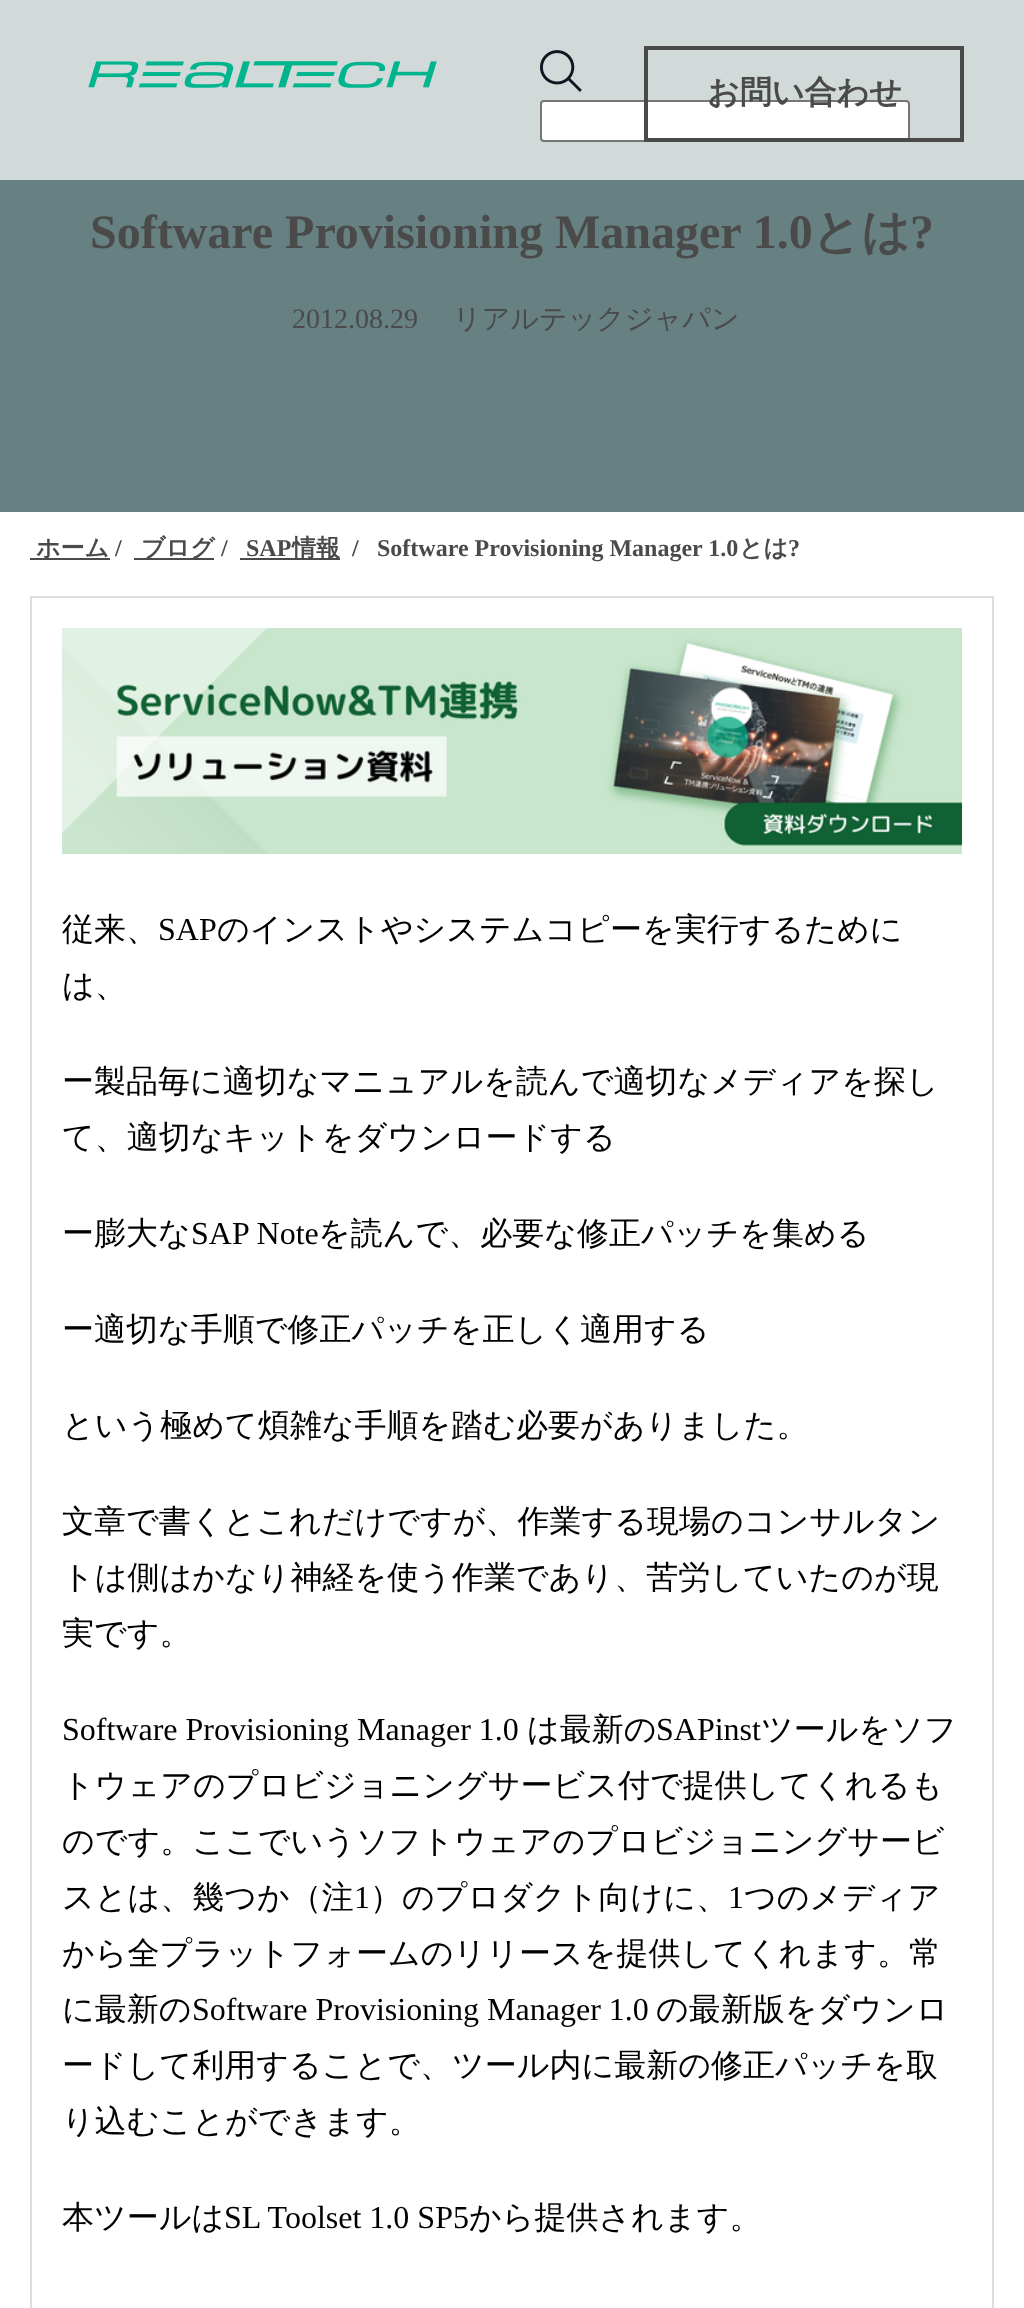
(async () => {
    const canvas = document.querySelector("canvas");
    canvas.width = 1024;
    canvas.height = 2308;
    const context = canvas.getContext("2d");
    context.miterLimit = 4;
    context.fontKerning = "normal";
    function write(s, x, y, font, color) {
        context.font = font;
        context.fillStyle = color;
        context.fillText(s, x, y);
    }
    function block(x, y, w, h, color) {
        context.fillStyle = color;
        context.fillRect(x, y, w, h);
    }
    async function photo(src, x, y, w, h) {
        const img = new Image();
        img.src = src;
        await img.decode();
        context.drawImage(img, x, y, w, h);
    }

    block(0, 0, 1024, 2308, "rgb(255, 255, 255)");
    block(0, 0, 1024, 180, "rgb(209, 217, 217)");
    await photo("media/1.png", 88, 61, 349, 27);
    await photo("media/2.png", 540, 50, 42, 42);
    context.fillStyle = "rgb(255, 255, 255)";
    context.beginPath();
    context.roundRect(541, 101, 368, 40, 3);
    context.fill();
    context.strokeStyle = "rgb(118, 118, 118)";
    context.lineWidth = 2;
    context.stroke();
    context.strokeStyle = "rgb(74, 74, 74)";
    context.lineWidth = 4;
    context.strokeRect(646, 48, 316, 92);
    write("お問い合わせ", 707, 103, "bold 32px WenQuanYi Zen Hei", "rgb(74, 74, 74)");
    block(0, 180, 1024, 332, "rgb(103, 128, 129)");
    write("Software Provisioning Manager 1.0", 90, 248, "bold 48px Liberation Serif", "rgb(74, 74, 74)");
    write("とは", 812, 248, "bold 48px WenQuanYi Zen Hei", "rgb(74, 74, 74)");
    write("?", 910, 248, "bold 48px Liberation Serif", "rgb(74, 74, 74)");
    write("2012.08.29", 292, 328, "28px Liberation Serif", "rgb(74, 74, 74)");
    write("リアルテックジャパン", 453, 328, "500 28px WenQuanYi Zen Hei", "rgb(74, 74, 74)");
    block(30, 558, 80, 2, "rgb(74, 74, 74)");
    write("ホーム", 36, 556, "bold 24px WenQuanYi Zen Hei", "rgb(74, 74, 74)");
    write("/", 115, 556, "bold 24px Liberation Serif", "rgb(74, 74, 74)");
    block(134, 558, 80, 2, "rgb(74, 74, 74)");
    write("ブログ", 141, 556, "bold 24px WenQuanYi Zen Hei", "rgb(74, 74, 74)");
    write("/", 221, 556, "bold 24px Liberation Serif", "rgb(74, 74, 74)");
    write("SAP", 246, 556, "bold 24px Liberation Serif", "rgb(74, 74, 74)");
    block(240, 558, 100, 2, "rgb(74, 74, 74)");
    write("情報", 292, 556, "bold 24px WenQuanYi Zen Hei", "rgb(74, 74, 74)");
    write("/", 352, 556, "bold 24px Liberation Serif", "rgb(74, 74, 74)");
    write("Software Provisioning Manager 1.0", 377, 556, "bold 24px Liberation Serif", "rgb(74, 74, 74)");
    write("とは", 739, 556, "bold 24px WenQuanYi Zen Hei", "rgb(74, 74, 74)");
    write("?", 788, 556, "bold 24px Liberation Serif", "rgb(74, 74, 74)");
    context.strokeStyle = "rgb(221, 221, 221)";
    context.lineWidth = 2;
    context.strokeRect(31, 597, 962, 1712);
    await photo("media/3.png", 62, 628, 900, 226);
    write("従来、", 62, 940, "500 32px WenQuanYi Zen Hei", "rgb(0, 0, 0)");
    write("SAP", 158, 940, "32px Liberation Serif", "rgb(0, 0, 0)");
    write("のインストやシステムコピーを実行するために", 217, 940, "500 32px WenQuanYi Zen Hei", "rgb(0, 0, 0)");
    write("は、", 62, 996, "500 32px WenQuanYi Zen Hei", "rgb(0, 0, 0)");
    write("ー製品毎に適切なマニュアルを読んで適切なメディアを探し", 62, 1092, "500 32px WenQuanYi Zen Hei", "rgb(0, 0, 0)");
    write("て、適切なキットをダウンロードする", 62, 1148, "500 32px WenQuanYi Zen Hei", "rgb(0, 0, 0)");
    write("ー膨大な", 62, 1244, "500 32px WenQuanYi Zen Hei", "rgb(0, 0, 0)");
    write("SAP Note", 191, 1244, "32px Liberation Serif", "rgb(0, 0, 0)");
    write("を読んで、必要な修正パッチを集める", 318, 1244, "500 32px WenQuanYi Zen Hei", "rgb(0, 0, 0)");
    write("ー適切な手順で修正パッチを正しく適用する", 62, 1340, "500 32px WenQuanYi Zen Hei", "rgb(0, 0, 0)");
    write("という極めて煩雑な手順を踏む必要がありました。", 62, 1436, "500 32px WenQuanYi Zen Hei", "rgb(0, 0, 0)");
    write("文章で書くとこれだけですが、作業する現場のコンサルタン", 62, 1532, "500 32px WenQuanYi Zen Hei", "rgb(0, 0, 0)");
    write("トは側はかなり神経を使う作業であり、苦労していたのが現", 62, 1588, "500 32px WenQuanYi Zen Hei", "rgb(0, 0, 0)");
    write("実です。", 62, 1644, "500 32px WenQuanYi Zen Hei", "rgb(0, 0, 0)");
    write("Software Provisioning Manager 1.0", 62, 1740, "32px Liberation Serif", "rgb(0, 0, 0)");
    write("は最新の", 527, 1740, "500 32px WenQuanYi Zen Hei", "rgb(0, 0, 0)");
    write("SAPinst", 656, 1740, "32px Liberation Serif", "rgb(0, 0, 0)");
    write("ツールをソフ", 761, 1740, "500 32px WenQuanYi Zen Hei", "rgb(0, 0, 0)");
    write("トウェアのプロビジョニングサービス付で提供してくれるも", 62, 1796, "500 32px WenQuanYi Zen Hei", "rgb(0, 0, 0)");
    write("のです。ここでいうソフトウェアのプロビジョニングサービ", 62, 1852, "500 32px WenQuanYi Zen Hei", "rgb(0, 0, 0)");
    write("スとは、幾つか（注", 62, 1908, "500 32px WenQuanYi Zen Hei", "rgb(0, 0, 0)");
    write("1", 354, 1908, "32px Liberation Serif", "rgb(0, 0, 0)");
    write("）のプロダクト向けに、", 370, 1908, "500 32px WenQuanYi Zen Hei", "rgb(0, 0, 0)");
    write("1", 728, 1908, "32px Liberation Serif", "rgb(0, 0, 0)");
    write("つのメディア", 744, 1908, "500 32px WenQuanYi Zen Hei", "rgb(0, 0, 0)");
    write("から全プラットフォームのリリースを提供してくれます。常", 62, 1964, "500 32px WenQuanYi Zen Hei", "rgb(0, 0, 0)");
    write("に最新の", 62, 2020, "500 32px WenQuanYi Zen Hei", "rgb(0, 0, 0)");
    write("Software Provisioning Manager 1.0", 192, 2020, "32px Liberation Serif", "rgb(0, 0, 0)");
    write("の最新版をダウンロ", 656, 2020, "500 32px WenQuanYi Zen Hei", "rgb(0, 0, 0)");
    write("ードして利用することで、ツール内に最新の修正パッチを取", 62, 2076, "500 32px WenQuanYi Zen Hei", "rgb(0, 0, 0)");
    write("り込むことができます。", 62, 2132, "500 32px WenQuanYi Zen Hei", "rgb(0, 0, 0)");
    write("本ツールは", 62, 2228, "500 32px WenQuanYi Zen Hei", "rgb(0, 0, 0)");
    write("SL Toolset 1.0 SP5", 224, 2228, "32px Liberation Serif", "rgb(0, 0, 0)");
    write("から提供されます。", 469, 2228, "500 32px WenQuanYi Zen Hei", "rgb(0, 0, 0)");
})();
